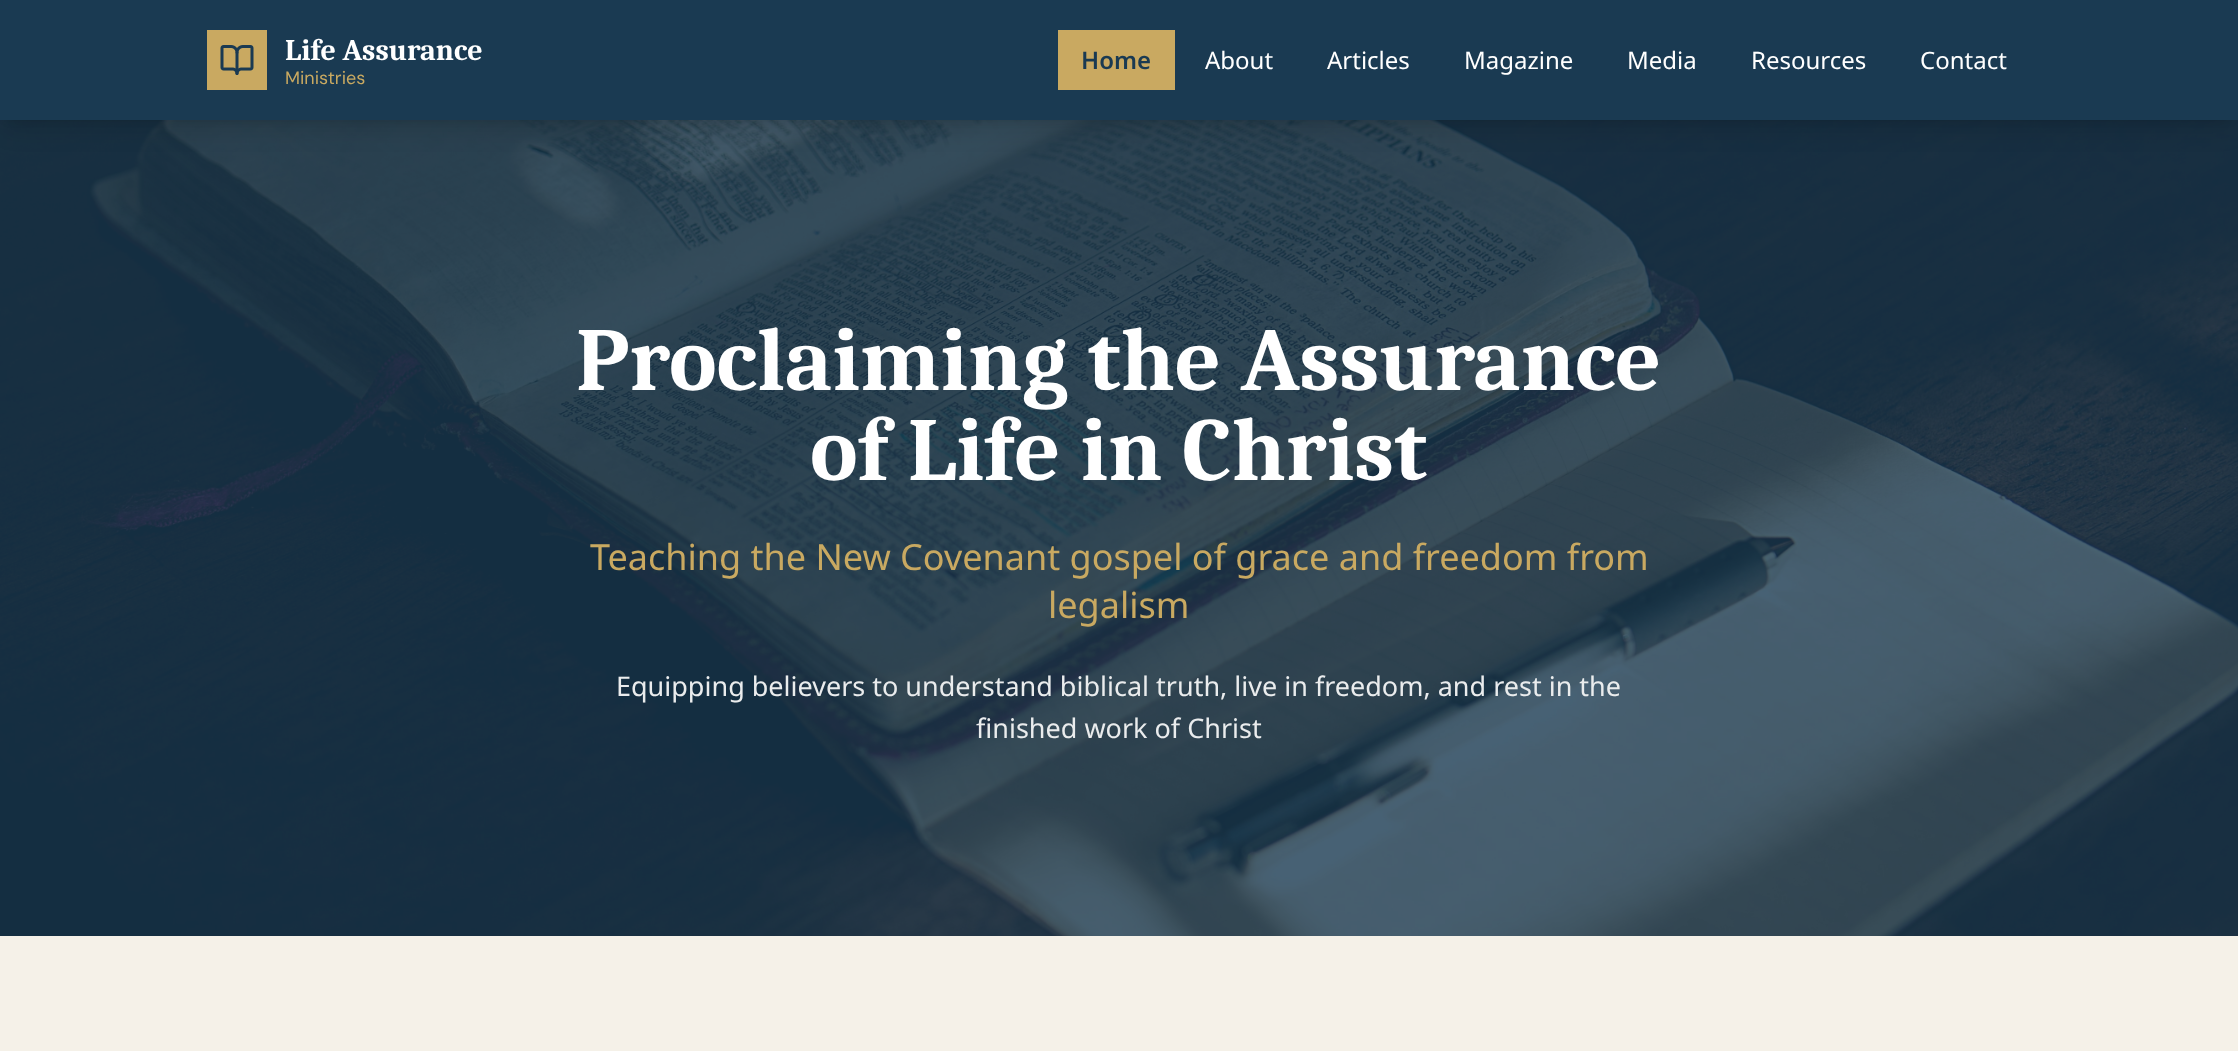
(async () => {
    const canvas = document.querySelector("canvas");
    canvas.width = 2238;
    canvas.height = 1051;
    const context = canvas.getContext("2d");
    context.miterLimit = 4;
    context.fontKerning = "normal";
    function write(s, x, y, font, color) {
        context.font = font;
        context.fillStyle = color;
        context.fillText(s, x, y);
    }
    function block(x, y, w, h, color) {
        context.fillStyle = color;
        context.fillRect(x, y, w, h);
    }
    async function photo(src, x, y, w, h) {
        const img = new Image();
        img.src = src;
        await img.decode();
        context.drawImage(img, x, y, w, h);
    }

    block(0, 0, 2238, 1051, "rgb(245, 241, 232)");
    block(0, 120, 2238, 816, "rgb(26, 58, 82)");
    await photo("media/2.png", 0, 120, 2238, 816);
    context.fillStyle = "rgba(0, 0, 0, 0.1)";
    context.filter = "blur(4.5px)";
    context.beginPath();
    context.rect(6, 12, 2226, 108);
    context.fill();
    context.filter = "none";
    context.filter = "blur(11px)";
    context.beginPath();
    context.rect(5, 20, 2229, 111);
    context.fill();
    context.filter = "none";
    block(0, 0, 2238, 120, "rgb(26, 58, 82)");
    block(207, 30, 60, 60, "rgb(201, 169, 97)");
    await photo("media/1.png", 220, 45, 34, 30);
    write("Life Assurance", 285, 60, "bold 30px Caladea", "rgb(255, 255, 255)");
    write("Ministries", 285, 84, "18px DM Sans", "rgb(201, 169, 97)");
    block(1058, 30, 117, 60, "rgb(201, 169, 97)");
    write("Home", 1081, 69, "600 24px Noto Sans", "rgb(26, 58, 82)");
    write("About", 1205, 69, "24px Noto Sans", "rgb(255, 255, 255)");
    write("Articles", 1327, 69, "24px Noto Sans", "rgb(255, 255, 255)");
    write("Magazine", 1464, 69, "24px Noto Sans", "rgb(255, 255, 255)");
    write("Media", 1627, 69, "24px Noto Sans", "rgb(255, 255, 255)");
    write("Resources", 1751, 69, "24px Noto Sans", "rgb(255, 255, 255)");
    write("Contact", 1920, 69, "24px Noto Sans", "rgb(255, 255, 255)");
    write("Proclaiming the Assurance", 576, 390, "bold 90px Caladea", "rgb(255, 255, 255)");
    write("of Life in Christ", 810, 480, "bold 90px Caladea", "rgb(255, 255, 255)");
    write("Teaching the New Covenant gospel of grace and freedom from", 590, 570, "36px Noto Sans", "rgb(201, 169, 97)");
    write("legalism", 1048, 618, "36px Noto Sans", "rgb(201, 169, 97)");
    write("Equipping believers to understand biblical truth, live in freedom, and rest in the", 616, 696, "27px Noto Sans", "rgb(234, 236, 237)");
    write("finished work of Christ", 976, 738, "27px Noto Sans", "rgb(234, 236, 237)");
})();
